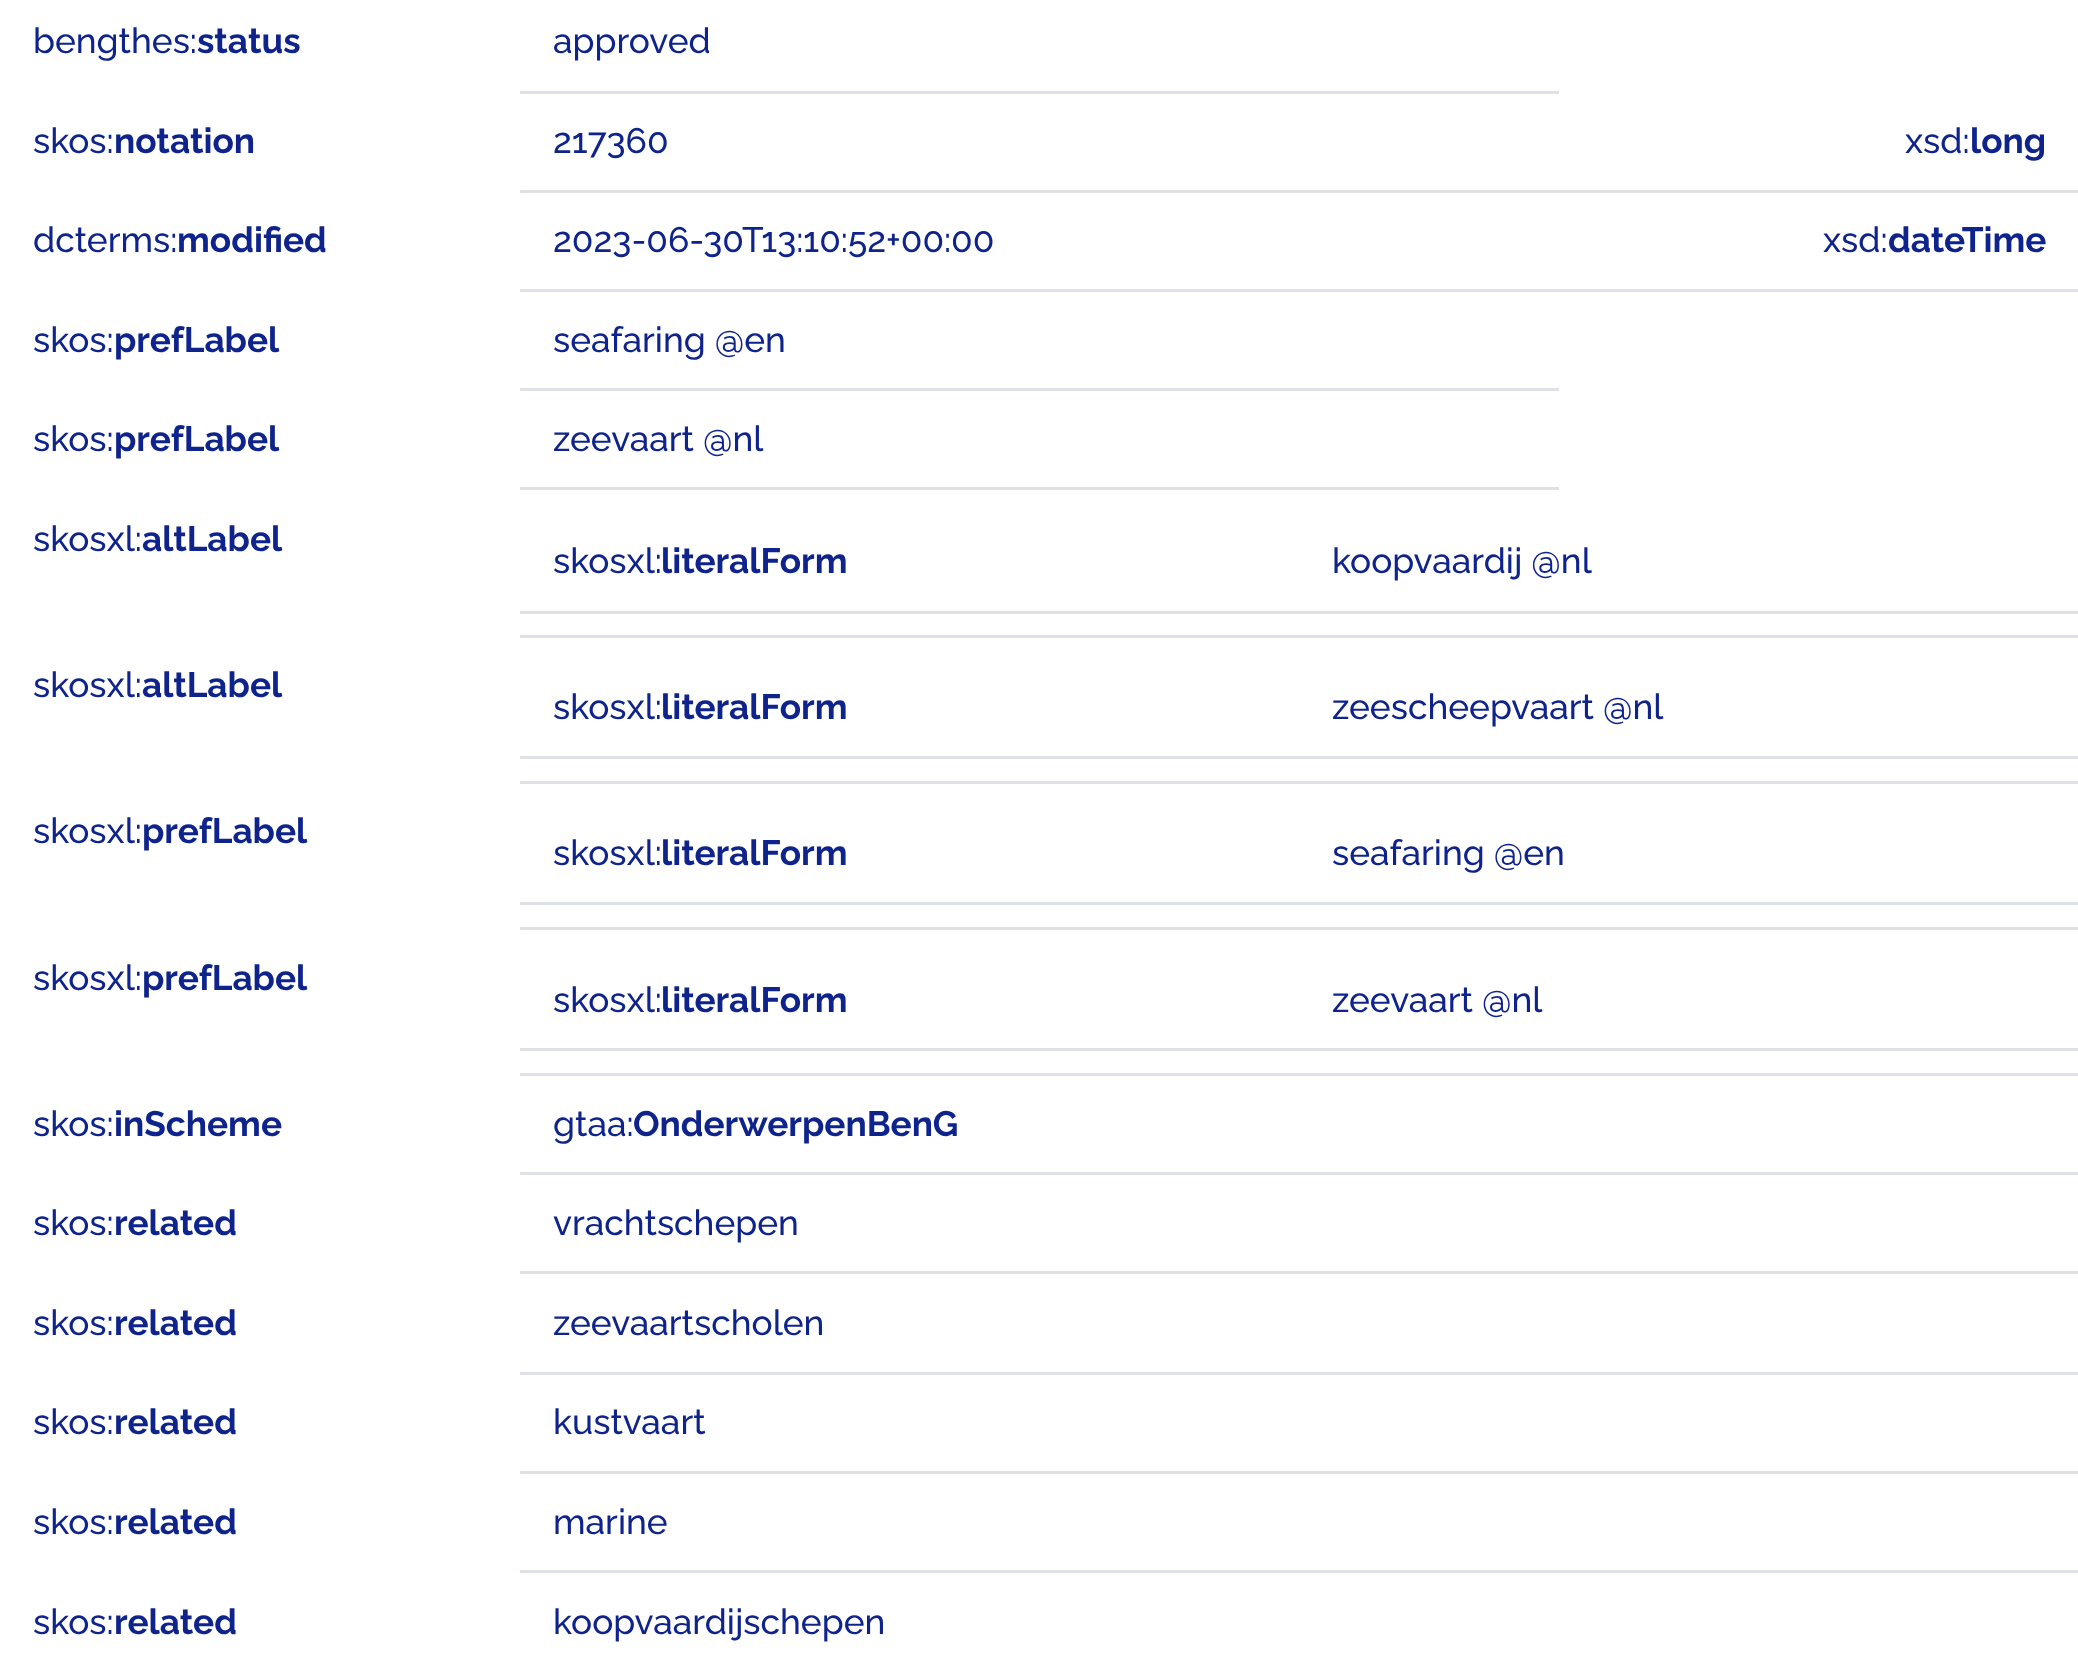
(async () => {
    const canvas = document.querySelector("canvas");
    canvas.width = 2078;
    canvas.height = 1660;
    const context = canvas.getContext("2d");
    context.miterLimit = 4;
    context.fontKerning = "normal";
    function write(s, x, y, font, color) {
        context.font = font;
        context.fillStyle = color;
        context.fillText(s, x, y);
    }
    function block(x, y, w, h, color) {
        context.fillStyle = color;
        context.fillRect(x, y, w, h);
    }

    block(0, 0, 2078, 1660, "rgb(255, 255, 255)");
    write("bengthes:", 33, 53, "500 35.25px Raleway", "rgb(15, 35, 140)");
    write("status", 197, 53, "bold 35.25px Raleway", "rgb(15, 35, 140)");
    block(520, 91, 1039, 3, "rgb(222, 226, 230)");
    write("approved", 553, 53, "500 35.25px Raleway", "rgb(15, 35, 140)");
    write("skos:", 33, 153, "500 35.25px Raleway", "rgb(15, 35, 140)");
    write("notation", 114, 153, "bold 35.25px Raleway", "rgb(15, 35, 140)");
    block(520, 190, 1558, 3, "rgb(222, 226, 230)");
    write("217360", 553, 153, "500 35.25px Raleway", "rgb(15, 35, 140)");
    write("xsd:", 1905, 153, "500 35.25px Raleway", "rgb(15, 35, 140)");
    write("long", 1970, 153, "bold 35.25px Raleway", "rgb(15, 35, 140)");
    write("dcterms:", 33, 252, "500 35.25px Raleway", "rgb(15, 35, 140)");
    write("modified", 177, 252, "bold 35.25px Raleway", "rgb(15, 35, 140)");
    block(520, 289, 1558, 3, "rgb(222, 226, 230)");
    write("2023-06-30T13:10:52+00:00", 553, 252, "500 35.25px Raleway", "rgb(15, 35, 140)");
    write("xsd:", 1823, 252, "500 35.25px Raleway", "rgb(15, 35, 140)");
    write("dateTime", 1888, 252, "bold 35.25px Raleway", "rgb(15, 35, 140)");
    write("skos:", 33, 352, "500 35.25px Raleway", "rgb(15, 35, 140)");
    write("prefLabel", 114, 352, "bold 35.25px Raleway", "rgb(15, 35, 140)");
    block(520, 388, 1039, 3, "rgb(222, 226, 230)");
    write("seafaring @en", 553, 352, "500 35.25px Raleway", "rgb(15, 35, 140)");
    write("skos:", 33, 451, "500 35.25px Raleway", "rgb(15, 35, 140)");
    write("prefLabel", 114, 451, "bold 35.25px Raleway", "rgb(15, 35, 140)");
    block(520, 487, 1039, 3, "rgb(222, 226, 230)");
    write("zeevaart @nl", 553, 451, "500 35.25px Raleway", "rgb(15, 35, 140)");
    write("skosxl:", 33, 551, "500 35.25px Raleway", "rgb(15, 35, 140)");
    write("altLabel", 142, 551, "bold 35.25px Raleway", "rgb(15, 35, 140)");
    block(520, 635, 1558, 3, "rgb(222, 226, 230)");
    block(520, 611, 1558, 3, "rgb(222, 226, 230)");
    write("skosxl:", 553, 573, "500 35.25px Raleway", "rgb(15, 35, 140)");
    write("literalForm", 661, 573, "bold 35.25px Raleway", "rgb(15, 35, 140)");
    write("koopvaardij @nl", 1332, 573, "500 35.25px Raleway", "rgb(15, 35, 140)");
    write("skosxl:", 33, 697, "500 35.25px Raleway", "rgb(15, 35, 140)");
    write("altLabel", 142, 697, "bold 35.25px Raleway", "rgb(15, 35, 140)");
    block(520, 781, 1558, 3, "rgb(222, 226, 230)");
    block(520, 756, 1558, 3, "rgb(222, 226, 230)");
    write("skosxl:", 553, 719, "500 35.25px Raleway", "rgb(15, 35, 140)");
    write("literalForm", 661, 719, "bold 35.25px Raleway", "rgb(15, 35, 140)");
    write("zeescheepvaart @nl", 1332, 719, "500 35.25px Raleway", "rgb(15, 35, 140)");
    write("skosxl:", 33, 843, "500 35.25px Raleway", "rgb(15, 35, 140)");
    write("prefLabel", 142, 843, "bold 35.25px Raleway", "rgb(15, 35, 140)");
    block(520, 927, 1558, 3, "rgb(222, 226, 230)");
    block(520, 902, 1558, 3, "rgb(222, 226, 230)");
    write("skosxl:", 553, 865, "500 35.25px Raleway", "rgb(15, 35, 140)");
    write("literalForm", 661, 865, "bold 35.25px Raleway", "rgb(15, 35, 140)");
    write("seafaring @en", 1332, 865, "500 35.25px Raleway", "rgb(15, 35, 140)");
    write("skosxl:", 33, 990, "500 35.25px Raleway", "rgb(15, 35, 140)");
    write("prefLabel", 142, 990, "bold 35.25px Raleway", "rgb(15, 35, 140)");
    block(520, 1073, 1558, 3, "rgb(222, 226, 230)");
    block(520, 1048, 1558, 3, "rgb(222, 226, 230)");
    write("skosxl:", 553, 1012, "500 35.25px Raleway", "rgb(15, 35, 140)");
    write("literalForm", 661, 1012, "bold 35.25px Raleway", "rgb(15, 35, 140)");
    write("zeevaart @nl", 1332, 1012, "500 35.25px Raleway", "rgb(15, 35, 140)");
    write("skos:", 33, 1136, "500 35.25px Raleway", "rgb(15, 35, 140)");
    write("inScheme", 114, 1136, "bold 35.25px Raleway", "rgb(15, 35, 140)");
    block(520, 1172, 1558, 3, "rgb(222, 226, 230)");
    write("gtaa:", 553, 1136, "500 35.25px Raleway", "rgb(15, 35, 140)");
    write("OnderwerpenBenG", 633, 1136, "bold 35.25px Raleway", "rgb(15, 35, 140)");
    write("skos:", 33, 1235, "500 35.25px Raleway", "rgb(15, 35, 140)");
    write("related", 114, 1235, "bold 35.25px Raleway", "rgb(15, 35, 140)");
    block(520, 1271, 1558, 3, "rgb(222, 226, 230)");
    write("vrachtschepen", 553, 1235, "500 35.25px Raleway", "rgb(15, 35, 140)");
    write("skos:", 33, 1335, "500 35.25px Raleway", "rgb(15, 35, 140)");
    write("related", 114, 1335, "bold 35.25px Raleway", "rgb(15, 35, 140)");
    block(520, 1372, 1558, 3, "rgb(222, 226, 230)");
    write("zeevaartscholen", 553, 1335, "500 35.25px Raleway", "rgb(15, 35, 140)");
    write("skos:", 33, 1434, "500 35.25px Raleway", "rgb(15, 35, 140)");
    write("related", 114, 1434, "bold 35.25px Raleway", "rgb(15, 35, 140)");
    block(520, 1471, 1558, 3, "rgb(222, 226, 230)");
    write("kustvaart", 553, 1434, "500 35.25px Raleway", "rgb(15, 35, 140)");
    write("skos:", 33, 1534, "500 35.25px Raleway", "rgb(15, 35, 140)");
    write("related", 114, 1534, "bold 35.25px Raleway", "rgb(15, 35, 140)");
    block(520, 1570, 1558, 3, "rgb(222, 226, 230)");
    write("marine", 553, 1534, "500 35.25px Raleway", "rgb(15, 35, 140)");
    write("skos:", 33, 1634, "500 35.25px Raleway", "rgb(15, 35, 140)");
    write("related", 114, 1634, "bold 35.25px Raleway", "rgb(15, 35, 140)");
    write("koopvaardijschepen", 553, 1634, "500 35.25px Raleway", "rgb(15, 35, 140)");
})();
